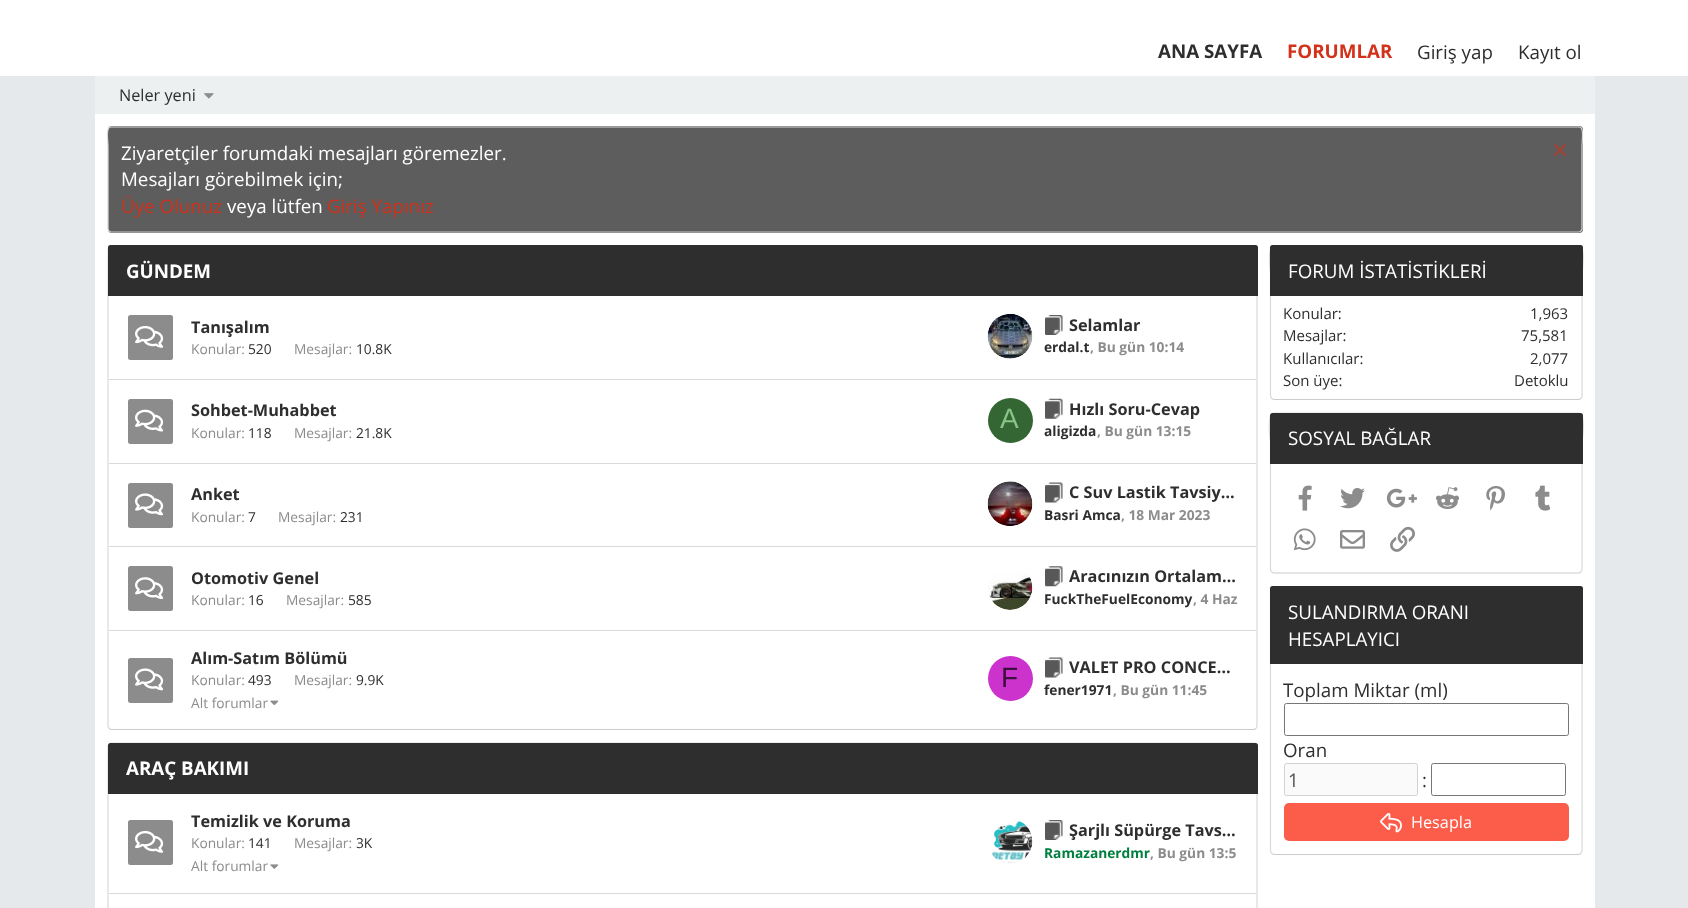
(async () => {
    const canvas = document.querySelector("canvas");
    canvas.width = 1688;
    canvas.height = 908;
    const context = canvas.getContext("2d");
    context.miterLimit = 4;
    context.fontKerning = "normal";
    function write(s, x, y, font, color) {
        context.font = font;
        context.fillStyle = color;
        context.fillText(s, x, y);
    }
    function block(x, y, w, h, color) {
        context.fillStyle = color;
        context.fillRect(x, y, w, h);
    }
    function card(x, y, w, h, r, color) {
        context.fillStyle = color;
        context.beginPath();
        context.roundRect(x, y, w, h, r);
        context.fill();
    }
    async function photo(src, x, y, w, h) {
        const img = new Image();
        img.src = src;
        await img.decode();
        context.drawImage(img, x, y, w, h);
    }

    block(0, 0, 1688, 908, "rgb(229, 233, 236)");
    block(0, 0, 1688, 76, "rgb(255, 255, 255)");
    write("ANA SAYFA", 1158, 58, "bold 18.75px Open Sans", "rgb(46, 46, 46)");
    write("FORUMLAR", 1287, 58, "bold 18.75px Open Sans", "rgb(211, 49, 26)");
    write("Giriş yap", 1417, 59, "18.75px Open Sans", "rgb(46, 46, 46)");
    write("Kayıt ol", 1518, 59, "18.75px Open Sans", "rgb(46, 46, 46)");
    block(95, 76, 1500, 38, "rgb(236, 240, 241)");
    write("Neler yeni", 119, 101, "16.25px Open Sans", "rgb(46, 46, 46)");
    await photo("media/1.png", 204, 93, 10, 6);
    block(95, 114, 1500, 794, "rgb(255, 255, 255)");
    card(108, 126, 1475, 107, 4, "rgb(93, 93, 93)");
    context.beginPath();
    context.moveTo(1581, 231);
    context.lineTo(1579, 232);
    context.lineTo(111, 232);
    context.lineTo(109, 231);
    context.strokeStyle = "rgb(204, 204, 204)";
    context.lineWidth = 1.2;
    context.stroke();
    context.beginPath();
    context.moveTo(109, 231);
    context.lineTo(108, 229);
    context.lineTo(108, 146.5);
    context.bezierCurveTo(108, 140.5, 105.5, 127, 111, 127);
    context.lineTo(1579, 127);
    context.bezierCurveTo(1584.5, 127, 1582, 140.5, 1582, 146.5);
    context.lineTo(1582, 229);
    context.lineTo(1581, 231);
    context.strokeStyle = "rgb(217, 217, 217)";
    context.stroke();
    write("Ziyaretçiler forumdaki mesajları göremezler.", 121, 160, "18.75px Open Sans", "rgb(255, 255, 255)");
    await photo("media/2.png", 1553, 143, 14, 14);
    write("Mesajları görebilmek için;", 121, 186, "18.75px Open Sans", "rgb(255, 255, 255)");
    write("Üye Olunuz", 121, 213, "18.75px Open Sans", "rgb(211, 49, 26)");
    write("veya lütfen", 227, 213, "18.75px Open Sans", "rgb(255, 255, 255)");
    write("Giriş Yapınız", 327, 213, "18.75px Open Sans", "rgb(211, 49, 26)");
    context.beginPath();
    context.moveTo(1256, 728.5);
    context.lineTo(1254, 729.5);
    context.lineTo(111, 729.5);
    context.lineTo(109, 728.5);
    context.strokeStyle = "rgb(204, 204, 204)";
    context.stroke();
    context.beginPath();
    context.moveTo(109, 728.5);
    context.lineTo(108, 726);
    context.lineTo(108, 249);
    context.lineTo(109, 246.5);
    context.lineTo(111, 245.5);
    context.lineTo(1254, 245.5);
    context.lineTo(1256, 246.5);
    context.lineTo(1257, 249);
    context.lineTo(1257, 726);
    context.lineTo(1256, 728.5);
    context.strokeStyle = "rgb(217, 217, 217)";
    context.stroke();
    context.fillStyle = "rgb(46, 46, 46)";
    context.beginPath();
    context.roundRect(108, 245, 1150, 51, [2.5, 2.5, 0, 0]);
    context.fill();
    write("GÜNDEM", 126, 278, "bold 18.75px Open Sans", "rgb(255, 255, 255)");
    card(128, 315, 45, 45, 2.5, "rgb(140, 140, 140)");
    await photo("media/3.png", 135, 325, 29, 23);
    write("Tanışalım", 191, 333, "bold 16.25px Open Sans", "rgb(46, 46, 46)");
    write("Konular:", 191, 354, "13.75px Open Sans", "rgb(140, 140, 140)");
    write("520", 248, 354, "13.75px Open Sans", "rgb(46, 46, 46)");
    write("Mesajlar:", 294, 354, "13.75px Open Sans", "rgb(140, 140, 140)");
    write("10.8K", 356, 354, "13.75px Open Sans", "rgb(46, 46, 46)");
    await photo("media/4.png", 987, 314, 46, 45);
    await photo("media/5.png", 1045, 315, 18, 20);
    write("Selamlar", 1069, 331, "bold 16.25px Open Sans", "rgb(46, 46, 46)");
    write("erdal.t", 1044, 352, "bold 13.75px Open Sans", "rgb(46, 46, 46)");
    write(", Bu gün 10:14", 1090, 352, "bold 13.75px Open Sans", "rgb(140, 140, 140)");
    block(109, 379, 1147, 1, "rgb(217, 217, 217)");
    card(128, 399, 45, 45, 2.5, "rgb(140, 140, 140)");
    await photo("media/6.png", 135, 409, 29, 23);
    write("Sohbet-Muhabbet", 191, 416, "bold 16.25px Open Sans", "rgb(46, 46, 46)");
    write("Konular:", 191, 438, "13.75px Open Sans", "rgb(140, 140, 140)");
    write("118", 248, 438, "13.75px Open Sans", "rgb(46, 46, 46)");
    write("Mesajlar:", 294, 438, "13.75px Open Sans", "rgb(140, 140, 140)");
    write("21.8K", 356, 438, "13.75px Open Sans", "rgb(46, 46, 46)");
    context.fillStyle = "rgb(51, 102, 51)";
    context.beginPath();
    context.arc(1010.5, 420.5, 22.5, 0, Math.PI * 2);
    context.fill();
    write("A", 1000, 428, "28px Liberation Sans", "rgb(136, 195, 136)");
    await photo("media/7.png", 1045, 398, 18, 21);
    write("Hızlı Soru-Cevap", 1069, 415, "bold 16.25px Open Sans", "rgb(46, 46, 46)");
    write("aligizda", 1044, 436, "bold 13.75px Open Sans", "rgb(46, 46, 46)");
    write(", Bu gün 13:15", 1097, 436, "bold 13.75px Open Sans", "rgb(140, 140, 140)");
    block(109, 463, 1147, 1, "rgb(217, 217, 217)");
    card(128, 483, 45, 45, 2.5, "rgb(140, 140, 140)");
    await photo("media/8.png", 135, 493, 29, 23);
    write("Anket", 191, 500, "bold 16.25px Open Sans", "rgb(46, 46, 46)");
    write("Konular:", 191, 522, "13.75px Open Sans", "rgb(140, 140, 140)");
    write("7", 248, 522, "13.75px Open Sans", "rgb(46, 46, 46)");
    write("Mesajlar:", 278, 522, "13.75px Open Sans", "rgb(140, 140, 140)");
    write("231", 340, 522, "13.75px Open Sans", "rgb(46, 46, 46)");
    await photo("media/9.png", 987, 481, 46, 45);
    await photo("media/10.png", 1045, 482, 18, 21);
    write("C Suv Lastik Tavsiy…", 1069, 498, "bold 16.25px Open Sans", "rgb(46, 46, 46)");
    write("Basri Amca", 1044, 520, "bold 13.75px Open Sans", "rgb(46, 46, 46)");
    write(", 18 Mar 2023", 1121, 520, "bold 13.75px Open Sans", "rgb(140, 140, 140)");
    block(109, 546, 1147, 1, "rgb(217, 217, 217)");
    card(128, 566, 45, 45, 2.5, "rgb(140, 140, 140)");
    await photo("media/11.png", 135, 577, 29, 22);
    write("Otomotiv Genel", 191, 584, "bold 16.25px Open Sans", "rgb(46, 46, 46)");
    write("Konular:", 191, 605, "13.75px Open Sans", "rgb(140, 140, 140)");
    write("16", 248, 605, "13.75px Open Sans", "rgb(46, 46, 46)");
    write("Mesajlar:", 286, 605, "13.75px Open Sans", "rgb(140, 140, 140)");
    write("585", 348, 605, "13.75px Open Sans", "rgb(46, 46, 46)");
    await photo("media/12.png", 988, 573, 45, 37);
    await photo("media/13.png", 1045, 566, 18, 21);
    write("Aracınızın Ortalam…", 1069, 582, "bold 16.25px Open Sans", "rgb(46, 46, 46)");
    write("FuckTheFuelEconomy", 1044, 604, "bold 13.75px Open Sans", "rgb(46, 46, 46)");
    write(", 4 Haz", 1193, 604, "bold 13.75px Open Sans", "rgb(140, 140, 140)");
    block(109, 630, 1147, 1, "rgb(217, 217, 217)");
    card(128, 658, 45, 45, 2.5, "rgb(140, 140, 140)");
    await photo("media/8.png", 135, 668, 29, 23);
    write("Alım-Satım Bölümü", 191, 664, "bold 16.25px Open Sans", "rgb(46, 46, 46)");
    write("Konular:", 191, 685, "13.75px Open Sans", "rgb(140, 140, 140)");
    write("493", 248, 685, "13.75px Open Sans", "rgb(46, 46, 46)");
    write("Mesajlar:", 294, 685, "13.75px Open Sans", "rgb(140, 140, 140)");
    write("9.9K", 356, 685, "13.75px Open Sans", "rgb(46, 46, 46)");
    write("Alt forumlar", 191, 708, "13.75px Open Sans", "rgb(140, 140, 140)");
    await photo("media/14.png", 270, 700, 9, 6);
    context.fillStyle = "rgb(204, 51, 204)";
    context.beginPath();
    context.arc(1010.5, 678.5, 22.5, 0, Math.PI * 2);
    context.fill();
    write("F", 1001, 687, "28px Liberation Sans", "rgb(61, 15, 61)");
    await photo("media/10.png", 1045, 657, 18, 21);
    write("VALET PRO CONCE…", 1069, 673, "bold 16.25px Open Sans", "rgb(46, 46, 46)");
    write("fener1971", 1044, 695, "bold 13.75px Open Sans", "rgb(46, 46, 46)");
    write(", Bu gün 11:45", 1113, 695, "bold 13.75px Open Sans", "rgb(140, 140, 140)");
    context.beginPath();
    context.moveTo(109, 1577);
    context.lineTo(108, 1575);
    context.lineTo(108, 746);
    context.lineTo(109, 744);
    context.lineTo(111, 743);
    context.lineTo(1254, 743);
    context.lineTo(1256, 744);
    context.lineTo(1257, 746);
    context.lineTo(1257, 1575);
    context.lineTo(1256, 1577);
    context.stroke();
    context.fillStyle = "rgb(46, 46, 46)";
    context.beginPath();
    context.roundRect(108, 743, 1150, 51, [2.5, 2.5, 0, 0]);
    context.fill();
    write("ARAÇ BAKIMI", 126, 775, "bold 18.75px Open Sans", "rgb(255, 255, 255)");
    card(128, 820, 45, 45, 2.5, "rgb(140, 140, 140)");
    await photo("media/3.png", 135, 830, 29, 23);
    write("Temizlik ve Koruma", 191, 827, "bold 16.25px Open Sans", "rgb(46, 46, 46)");
    write("Konular:", 191, 848, "13.75px Open Sans", "rgb(140, 140, 140)");
    write("141", 248, 848, "13.75px Open Sans", "rgb(46, 46, 46)");
    write("Mesajlar:", 294, 848, "13.75px Open Sans", "rgb(140, 140, 140)");
    write("3K", 356, 848, "13.75px Open Sans", "rgb(46, 46, 46)");
    write("Alt forumlar", 191, 871, "13.75px Open Sans", "rgb(140, 140, 140)");
    await photo("media/15.png", 270, 864, 9, 5);
    await photo("media/16.png", 992, 821, 41, 43);
    await photo("media/5.png", 1045, 820, 18, 20);
    write("Şarjlı Süpürge Tavs…", 1069, 836, "bold 16.25px Open Sans", "rgb(46, 46, 46)");
    write("Ramazanerdmr", 1044, 858, "bold 13.75px Open Sans", "rgb(0, 127, 63)");
    write(", Bu gün 13:5", 1150, 858, "bold 13.75px Open Sans", "rgb(140, 140, 140)");
    block(109, 893, 1147, 1, "rgb(217, 217, 217)");
    context.beginPath();
    context.moveTo(1581, 398.5);
    context.lineTo(1579, 399.5);
    context.lineTo(1274, 399.5);
    context.lineTo(1271.5, 398.5);
    context.strokeStyle = "rgb(204, 204, 204)";
    context.stroke();
    context.beginPath();
    context.moveTo(1271.5, 398.5);
    context.lineTo(1270.5, 396);
    context.lineTo(1270.5, 273.5);
    context.bezierCurveTo(1270.5, 271.5, 1266.5, 245.5, 1274, 245.5);
    context.lineTo(1579, 245.5);
    context.bezierCurveTo(1586, 245.5, 1582, 271.5, 1582, 273.5);
    context.lineTo(1582, 396.5);
    context.lineTo(1581, 398.5);
    context.strokeStyle = "rgb(217, 217, 217)";
    context.stroke();
    context.fillStyle = "rgb(46, 46, 46)";
    context.beginPath();
    context.roundRect(1270, 245, 313, 51, [2.5, 2.5, 0, 0]);
    context.fill();
    write("FORUM İSTATİSTİKLERİ", 1288, 278, "18.75px Open Sans", "rgb(255, 255, 255)");
    write("Konular:", 1283, 319, "15px Open Sans", "rgb(46, 46, 46)");
    write("1,963", 1530, 319, "15px Open Sans", "rgb(46, 46, 46)");
    write("Mesajlar:", 1283, 341, "15px Open Sans", "rgb(46, 46, 46)");
    write("75,581", 1521, 341, "15px Open Sans", "rgb(46, 46, 46)");
    write("Kullanıcılar:", 1283, 364, "15px Open Sans", "rgb(46, 46, 46)");
    write("2,077", 1530, 364, "15px Open Sans", "rgb(46, 46, 46)");
    write("Son üye:", 1283, 386, "15px Open Sans", "rgb(46, 46, 46)");
    write("Detoklu", 1514, 386, "15px Open Sans", "rgb(46, 46, 46)");
    context.beginPath();
    context.moveTo(1581, 572);
    context.lineTo(1579, 573);
    context.lineTo(1274, 573);
    context.lineTo(1271.5, 572);
    context.strokeStyle = "rgb(204, 204, 204)";
    context.stroke();
    context.beginPath();
    context.moveTo(1271.5, 572);
    context.lineTo(1270.5, 570);
    context.lineTo(1270.5, 442);
    context.bezierCurveTo(1270.5, 441, 1266, 413, 1274, 413);
    context.lineTo(1579, 413);
    context.bezierCurveTo(1586.5, 413, 1582, 441, 1582, 442);
    context.lineTo(1582, 570);
    context.lineTo(1581, 572);
    context.strokeStyle = "rgb(217, 217, 217)";
    context.stroke();
    context.beginPath();
    context.roundRect(1270, 413, 313, 51, [2.5, 2.5, 0, 0]);
    context.fill();
    write("SOSYAL BAĞLAR", 1288, 445, "18.75px Open Sans", "rgb(255, 255, 255)");
    await photo("media/17.png", 1298, 485, 14, 26);
    await photo("media/18.png", 1340, 488, 25, 21);
    await photo("media/19.png", 1386, 488, 31, 20);
    await photo("media/20.png", 1436, 487, 23, 23);
    await photo("media/21.png", 1486, 485, 19, 26);
    await photo("media/22.png", 1535, 485, 16, 26);
    await photo("media/23.png", 1293, 528, 23, 23);
    await photo("media/24.png", 1340, 530, 25, 19);
    await photo("media/25.png", 1390, 526, 25, 26);
    context.beginPath();
    context.moveTo(1581, 853.5);
    context.lineTo(1579, 854.5);
    context.lineTo(1274, 854.5);
    context.lineTo(1271.5, 853.5);
    context.strokeStyle = "rgb(204, 204, 204)";
    context.stroke();
    context.beginPath();
    context.moveTo(1271.5, 853.5);
    context.lineTo(1270.5, 851);
    context.lineTo(1270.5, 590);
    context.lineTo(1271.5, 588);
    context.lineTo(1274, 587);
    context.lineTo(1579, 587);
    context.lineTo(1581, 588);
    context.lineTo(1582, 590);
    context.lineTo(1582, 851);
    context.lineTo(1581, 853.5);
    context.strokeStyle = "rgb(217, 217, 217)";
    context.stroke();
    context.fillStyle = "rgb(46, 46, 46)";
    context.beginPath();
    context.roundRect(1270, 586, 313, 78, [2.5, 2.5, 0, 0]);
    context.fill();
    write("SULANDIRMA ORANI", 1288, 619, "18.75px Open Sans", "rgb(255, 255, 255)");
    write("HESAPLAYICI", 1288, 646, "18.75px Open Sans", "rgb(255, 255, 255)");
    write("Toplam Miktar (ml)", 1283, 697, "18.75px Open Sans", "rgb(46, 46, 46)");
    context.beginPath();
    context.roundRect(1284.5, 703.5, 284, 32, 2);
    context.strokeStyle = "rgb(118, 118, 118)";
    context.lineWidth = 1;
    context.stroke();
    write("Oran", 1283, 757, "18.75px Open Sans", "rgb(46, 46, 46)");
    context.fillStyle = "rgb(250, 250, 250)";
    context.beginPath();
    context.roundRect(1284.5, 763.5, 133, 32, 2);
    context.fill();
    context.strokeStyle = "rgb(210, 210, 210)";
    context.stroke();
    write("1", 1288, 787, "18.75px Open Sans", "rgb(84, 84, 84)");
    write(":", 1422, 787, "18.75px Open Sans", "rgb(46, 46, 46)");
    context.beginPath();
    context.roundRect(1431.5, 763.5, 134, 32, 2);
    context.strokeStyle = "rgb(118, 118, 118)";
    context.stroke();
    card(1284, 803, 285, 38, 5, "rgb(252, 92, 74)");
    await photo("media/26.png", 1380, 813, 22, 20);
    write("Hesapla", 1411, 828, "16.25px Open Sans", "rgb(255, 255, 255)");
})();
